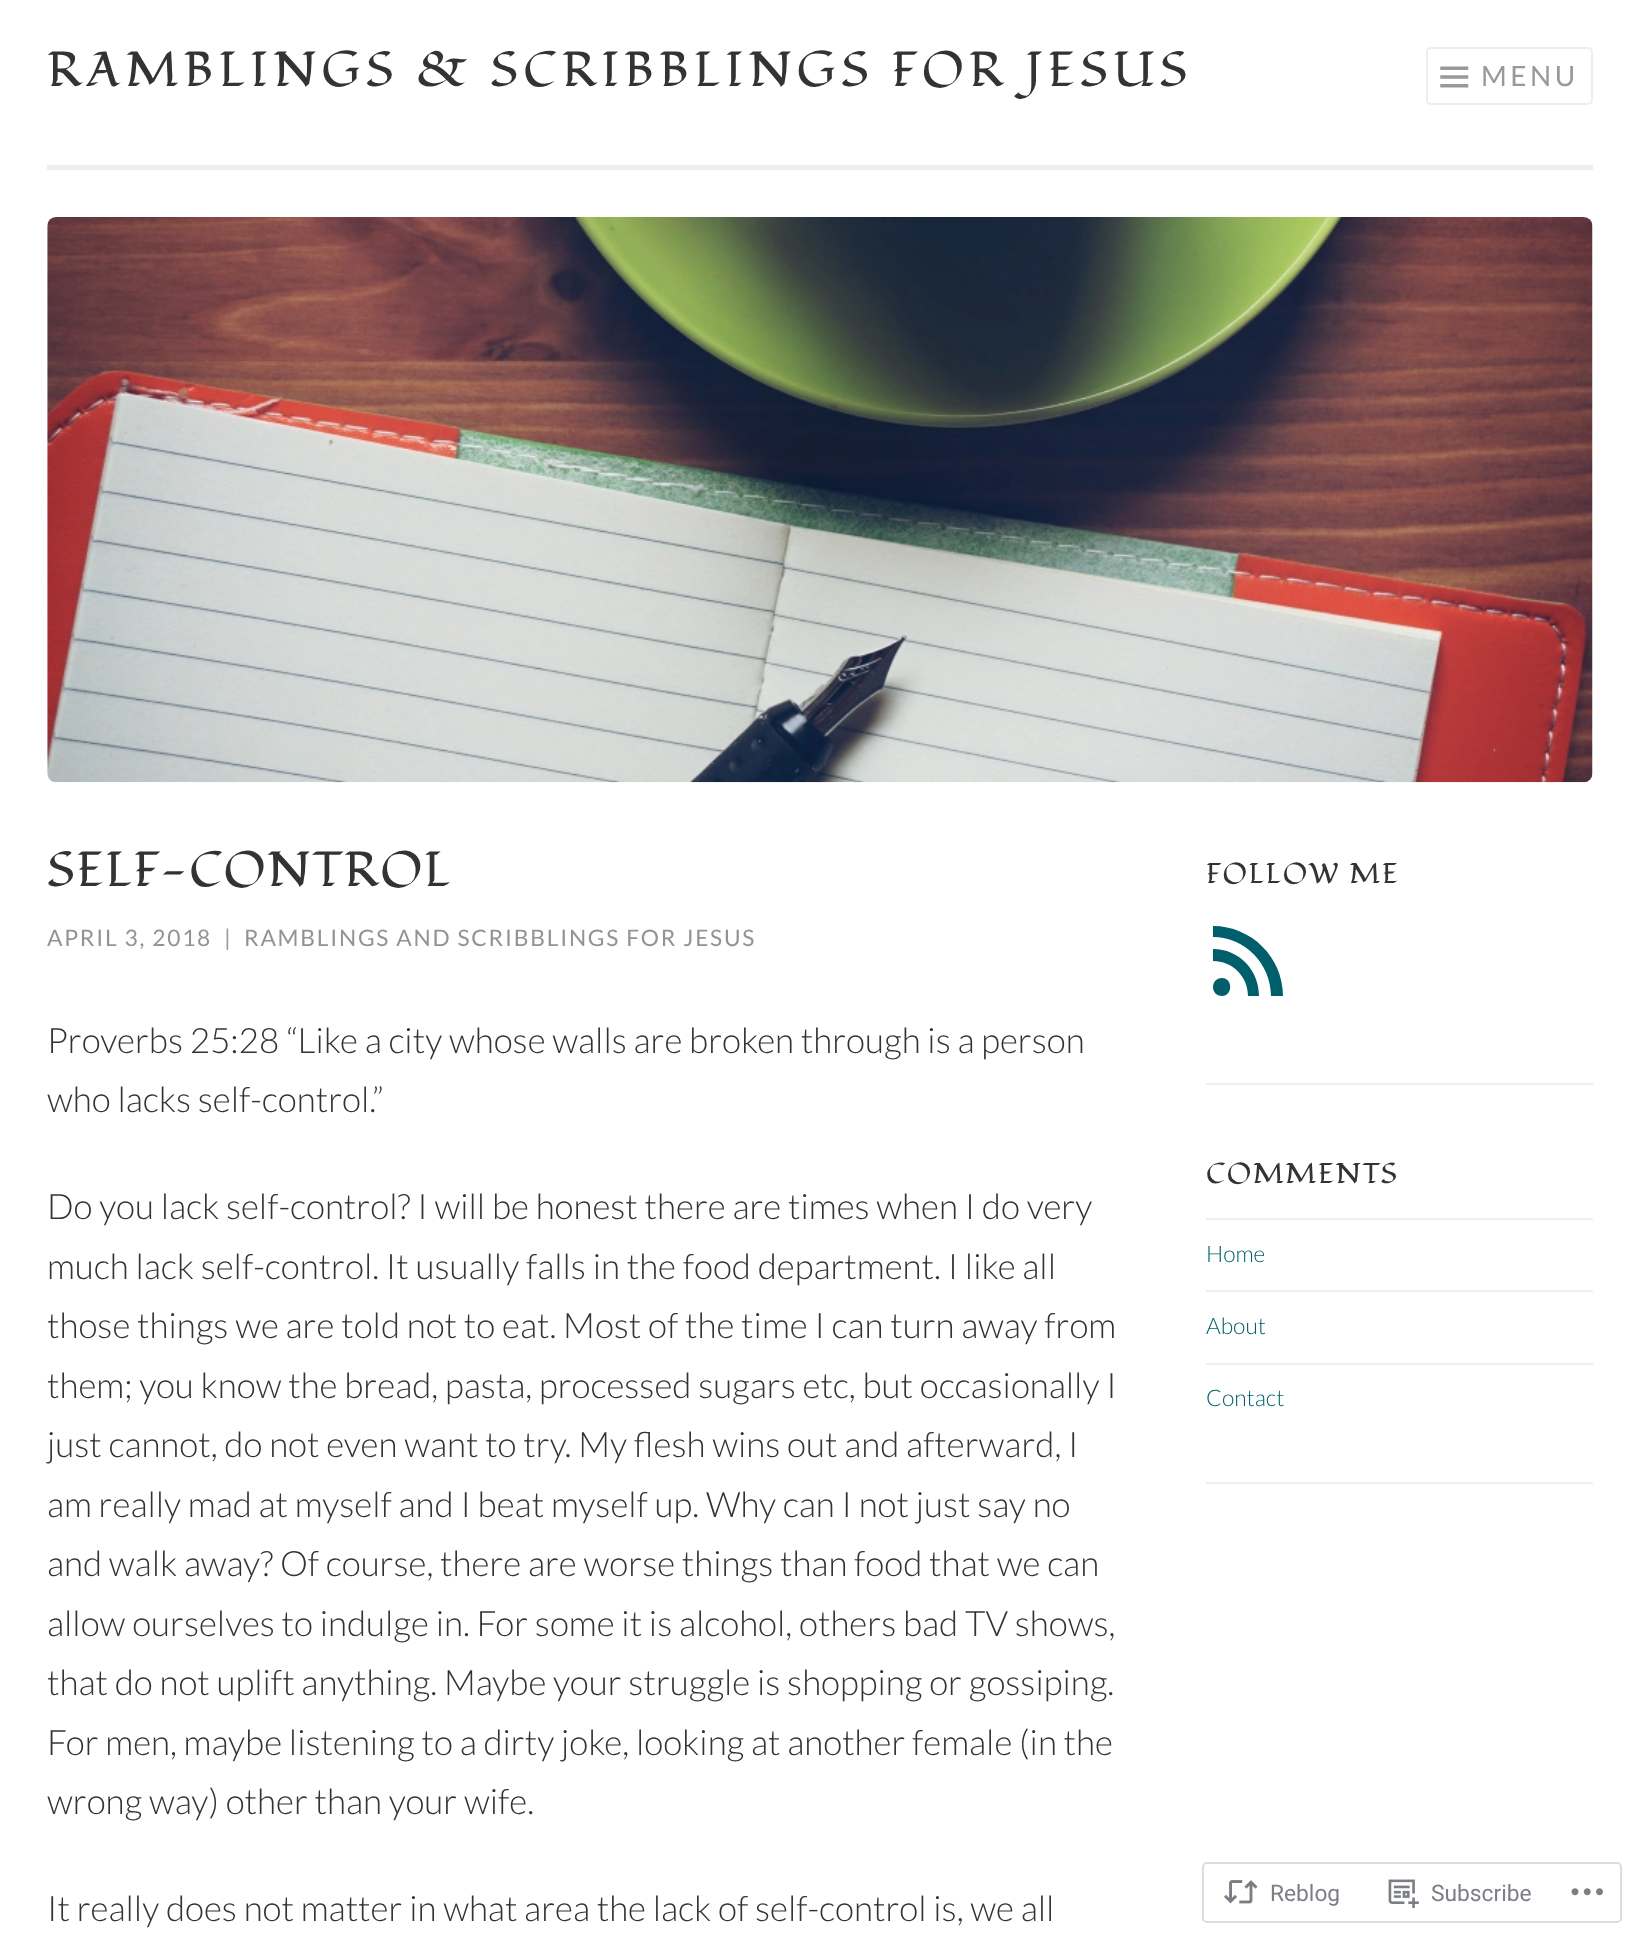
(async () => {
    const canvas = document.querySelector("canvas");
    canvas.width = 1639;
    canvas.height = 1940;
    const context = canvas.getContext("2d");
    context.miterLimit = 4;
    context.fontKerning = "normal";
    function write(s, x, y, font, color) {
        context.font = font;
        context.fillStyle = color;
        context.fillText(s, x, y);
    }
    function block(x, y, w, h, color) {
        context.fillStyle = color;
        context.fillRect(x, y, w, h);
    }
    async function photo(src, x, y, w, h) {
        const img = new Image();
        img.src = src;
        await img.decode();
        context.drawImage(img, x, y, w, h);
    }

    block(0, 0, 1639, 1940, "rgb(255, 255, 255)");
    block(47, 165, 1546, 5, "rgb(238, 238, 238)");
    context.letterSpacing = "5.25px";
    write("RAMBLINGS & SCRIBBLINGS FOR JESUS", 47, 86, "49px Fondamento", "rgb(51, 51, 51)");
    context.beginPath();
    context.roundRect(1427, 48, 165, 56, 4);
    context.strokeStyle = "rgb(238, 238, 238)";
    context.lineWidth = 2;
    context.stroke();
    await photo("media/1.png", 1440, 66, 29, 22);
    context.letterSpacing = "3.5px";
    write("MENU", 1481, 86, "28px Lato", "rgb(153, 153, 153)");
    await photo("media/2.png", 47, 217, 1546, 566);
    context.letterSpacing = "1.75px";
    write("SELF-CONTROL", 47, 886, "49px Fondamento", "rgb(51, 51, 51)");
    write("APRIL 3, 2018", 47, 946, "22.75px Lato", "rgb(147, 147, 147)");
    write("|", 224, 946, "22.75px Lato", "rgb(153, 153, 153)");
    write("RAMBLINGS AND SCRIBBLINGS FOR JESUS", 244, 946, "22.75px Lato", "rgb(147, 147, 147)");
    context.letterSpacing = "0px";
    write("Proverbs 25:28 “Like a city whose walls are broken through is a person", 47, 1053, "300 35px Lato", "rgb(51, 51, 51)");
    write("who lacks self-control.”", 47, 1112, "300 35px Lato", "rgb(51, 51, 51)");
    write("Do you lack self-control? I will be honest there are times when I do very", 47, 1219, "300 35px Lato", "rgb(51, 51, 51)");
    write("much lack self-control. It usually falls in the food department. I like all", 47, 1279, "300 35px Lato", "rgb(51, 51, 51)");
    write("those things we are told not to eat. Most of the time I can turn away from", 47, 1338, "300 35px Lato", "rgb(51, 51, 51)");
    write("them; you know the bread, pasta, processed sugars etc, but occasionally I", 47, 1398, "300 35px Lato", "rgb(51, 51, 51)");
    write("just cannot, do not even want to try. My flesh wins out and afterward, I", 47, 1457, "300 35px Lato", "rgb(51, 51, 51)");
    write("am really mad at myself and I beat myself up. Why can I not just say no", 47, 1517, "300 35px Lato", "rgb(51, 51, 51)");
    write("and walk away? Of course, there are worse things than food that we can", 47, 1576, "300 35px Lato", "rgb(51, 51, 51)");
    write("allow ourselves to indulge in. For some it is alcohol, others bad TV shows,", 47, 1636, "300 35px Lato", "rgb(51, 51, 51)");
    write("that do not uplift anything. Maybe your struggle is shopping or gossiping.", 47, 1695, "300 35px Lato", "rgb(51, 51, 51)");
    write("For men, maybe listening to a dirty joke, looking at another female (in the", 47, 1755, "300 35px Lato", "rgb(51, 51, 51)");
    write("wrong way) other than your wife.", 47, 1814, "300 35px Lato", "rgb(51, 51, 51)");
    write("It really does not matter in what area the lack of self-control is, we all", 47, 1921, "300 35px Lato", "rgb(51, 51, 51)");
    block(1206, 1083, 387, 2, "rgb(238, 238, 238)");
    context.letterSpacing = "1.75px";
    write("FOLLOW ME", 1206, 883, "28.5px Fondamento", "rgb(51, 51, 51)");
    context.fillStyle = "rgb(0, 95, 107)";
    context.beginPath();
    context.moveTo(1213, 949);
    context.lineTo(1213, 961);
    context.bezierCurveTo(1232, 961, 1248, 976, 1248, 996);
    context.lineTo(1259, 996);
    context.bezierCurveTo(1259, 970, 1239, 949, 1213, 949);
    context.closePath();
    context.moveTo(1213, 926);
    context.lineTo(1213, 937);
    context.bezierCurveTo(1245, 937, 1271, 964, 1271, 996);
    context.lineTo(1283, 996);
    context.bezierCurveTo(1283, 957, 1251, 926, 1213, 926);
    context.closePath();
    context.moveTo(1222, 978);
    context.bezierCurveTo(1210, 978, 1210, 996, 1222, 996);
    context.bezierCurveTo(1233, 996, 1233, 978, 1222, 978);
    context.closePath();
    context.fill();
    block(1206, 1482, 387, 2, "rgb(238, 238, 238)");
    write("COMMENTS", 1206, 1183, "28.5px Fondamento", "rgb(51, 51, 51)");
    block(1206, 1218, 387, 2, "rgb(238, 238, 238)");
    context.letterSpacing = "0px";
    write("Home", 1206, 1262, "300 22.75px Lato", "rgb(0, 95, 107)");
    block(1206, 1290, 387, 2, "rgb(238, 238, 238)");
    write("About", 1206, 1334, "300 22.75px Lato", "rgb(0, 95, 107)");
    block(1206, 1363, 387, 2, "rgb(238, 238, 238)");
    write("Contact", 1206, 1406, "300 22.75px Lato", "rgb(0, 95, 107)");
    context.beginPath();
    context.roundRect(1203, 1863, 418, 59, 4);
    context.strokeStyle = "rgb(221, 221, 223)";
    context.stroke();
    await photo("media/3.png", 1224, 1880, 34, 24);
    write("Reblog", 1270, 1901, "22.75px Roboto", "rgb(123, 127, 133)");
    await photo("media/4.png", 1388, 1879, 31, 29);
    write("Subscribe", 1431, 1901, "22.75px Roboto", "rgb(123, 127, 133)");
    await photo("media/5.png", 1571, 1888, 32, 8);
})();
